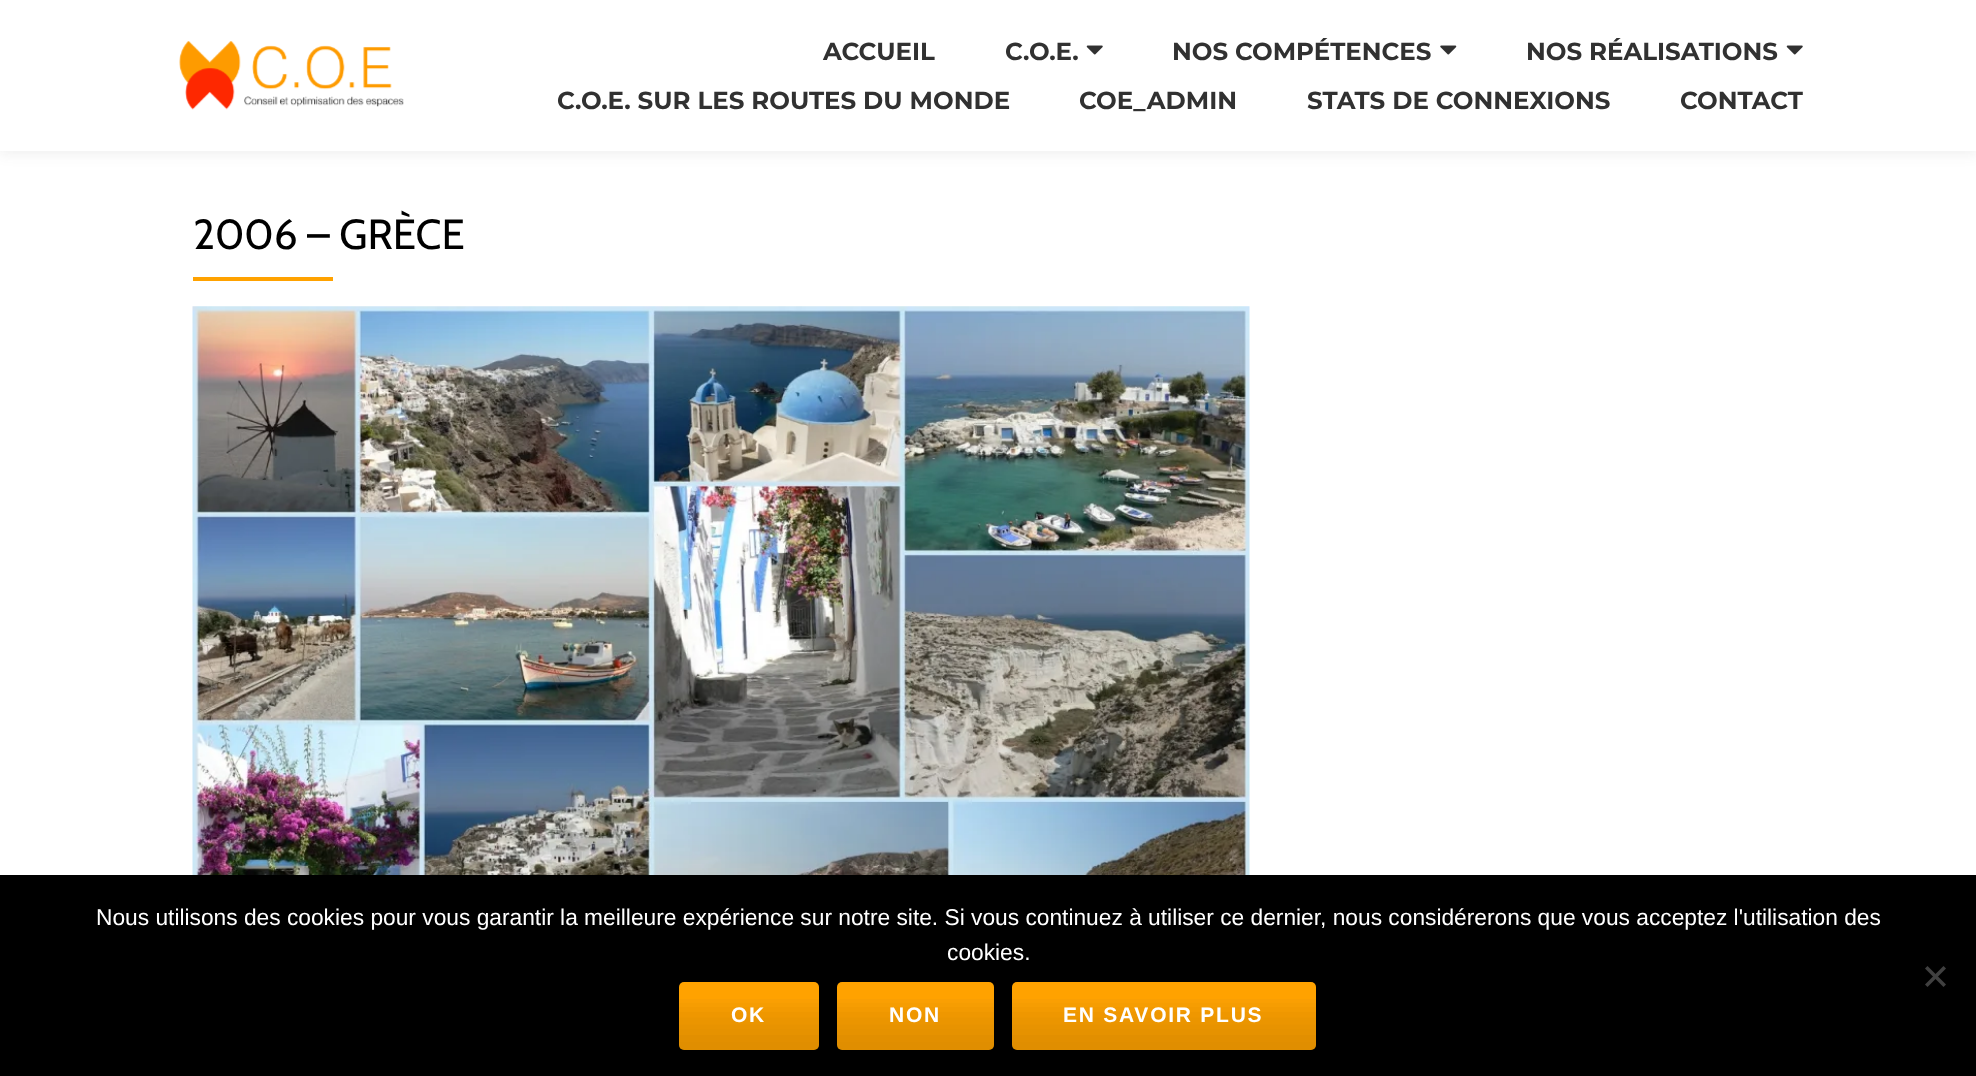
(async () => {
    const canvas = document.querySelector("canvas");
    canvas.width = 1976;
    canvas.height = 1076;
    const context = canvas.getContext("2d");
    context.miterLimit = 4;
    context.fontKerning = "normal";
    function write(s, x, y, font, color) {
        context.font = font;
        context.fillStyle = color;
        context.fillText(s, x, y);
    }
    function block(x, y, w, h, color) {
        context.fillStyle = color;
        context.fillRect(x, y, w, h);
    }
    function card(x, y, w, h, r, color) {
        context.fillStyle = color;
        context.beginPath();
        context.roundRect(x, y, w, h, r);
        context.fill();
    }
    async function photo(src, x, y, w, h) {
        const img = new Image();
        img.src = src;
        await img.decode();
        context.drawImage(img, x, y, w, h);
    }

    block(0, 0, 1976, 1076, "rgb(255, 255, 255)");
    context.fillStyle = "rgba(50, 50, 50, 0.08)";
    context.filter = "blur(7px)";
    context.beginPath();
    context.rect(0, 4, 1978, 150);
    context.fill();
    context.filter = "none";
    block(0, 0, 1976, 151, "rgb(255, 255, 255)");
    await photo("media/1.png", 179, 41, 225, 69);
    write("ACCUEIL", 823, 60, "bold 24.5px Montserrat", "rgb(49, 49, 49)");
    write("C.O.E.", 1005, 60, "bold 24.5px Montserrat", "rgb(49, 49, 49)");
    await photo("media/2.png", 1086, 45, 17, 10);
    write("NOS COMPÉTENCES", 1172, 60, "bold 24.5px Montserrat", "rgb(49, 49, 49)");
    await photo("media/3.png", 1440, 45, 17, 10);
    write("NOS RÉALISATIONS", 1526, 60, "bold 24.5px Montserrat", "rgb(49, 49, 49)");
    await photo("media/2.png", 1786, 45, 17, 10);
    write("C.O.E. SUR LES ROUTES DU MONDE", 557, 109, "bold 24.5px Montserrat", "rgb(49, 49, 49)");
    write("COE_ADMIN", 1079, 109, "bold 24.5px Montserrat", "rgb(49, 49, 49)");
    write("STATS DE CONNEXIONS", 1307, 109, "bold 24.5px Montserrat", "rgb(49, 49, 49)");
    write("CONTACT", 1680, 109, "bold 24.5px Montserrat", "rgb(49, 49, 49)");
    write("2006 – GRÈCE", 193, 249, "42px Cabin", "rgb(0, 0, 0)");
    block(193, 277, 140, 4, "rgb(255, 162, 0)");
    await photo("media/4.png", 192, 306, 1058, 569);
    block(0, 875, 1976, 201, "rgb(0, 0, 0)");
    write("Nous utilisons des cookies pour vous garantir la meilleure expérience sur notre site. Si vous continuez à utiliser ce dernier, nous considérerons que vous acceptez l'utilisation des", 96, 925, "22.75px Liberation Sans", "rgb(255, 255, 255)");
    write("cookies.", 947, 960, "22.75px Liberation Sans", "rgb(255, 255, 255)");
    context.fillStyle = "rgb(64, 64, 64)";
    context.beginPath();
    context.moveTo(1943.5, 966);
    context.lineTo(1946, 968.5);
    context.lineTo(1927.5, 987);
    context.lineTo(1925, 984.5);
    context.closePath();
    context.fill();
    context.beginPath();
    context.moveTo(1925, 968.5);
    context.lineTo(1927.5, 966);
    context.lineTo(1946, 984.5);
    context.lineTo(1943.5, 987);
    context.closePath();
    context.fill();
    card(679, 982, 140, 68, 5, "rgb(255, 162, 0)");
    await photo("media/5.png", 679, 999, 140, 51);
    context.letterSpacing = "1.75px";
    write("OK", 731, 1022, "bold 21px Liberation Sans", "rgb(255, 255, 255)");
    card(837, 982, 157, 68, 5, "rgb(255, 162, 0)");
    await photo("media/6.png", 837, 999, 157, 51);
    write("NON", 889, 1022, "bold 21px Liberation Sans", "rgb(255, 255, 255)");
    card(1012, 982, 304, 68, 5, "rgb(255, 162, 0)");
    await photo("media/7.png", 1012, 999, 304, 51);
    write("EN SAVOIR PLUS", 1063, 1022, "bold 21px Liberation Sans", "rgb(255, 255, 255)");
})();
